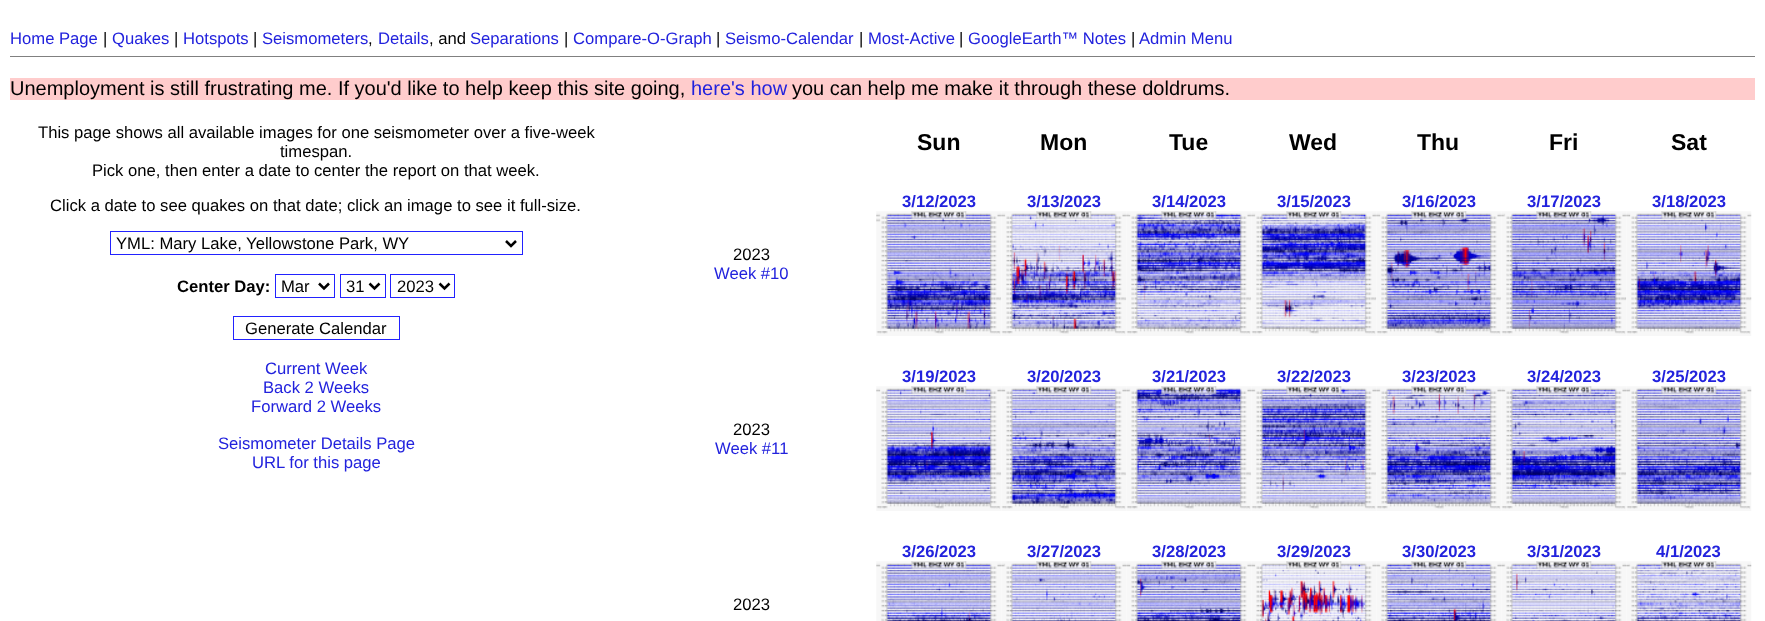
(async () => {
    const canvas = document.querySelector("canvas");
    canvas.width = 1765;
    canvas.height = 621;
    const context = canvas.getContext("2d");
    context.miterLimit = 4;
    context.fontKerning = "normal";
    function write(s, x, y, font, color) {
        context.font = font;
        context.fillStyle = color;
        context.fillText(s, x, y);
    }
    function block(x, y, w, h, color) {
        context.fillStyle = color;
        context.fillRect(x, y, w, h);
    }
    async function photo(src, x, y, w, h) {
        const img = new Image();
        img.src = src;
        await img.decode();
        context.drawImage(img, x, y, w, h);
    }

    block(0, 0, 1765, 621, "rgb(255, 255, 255)");
    write("Home Page", 10, 44, "16.65px Liberation Sans", "rgb(34, 34, 221)");
    write("|", 103, 44, "16.65px Liberation Sans", "rgb(0, 0, 0)");
    write("Quakes", 112, 44, "16.65px Liberation Sans", "rgb(34, 34, 221)");
    write("|", 174, 44, "16.65px Liberation Sans", "rgb(0, 0, 0)");
    write("Hotspots", 183, 44, "16.65px Liberation Sans", "rgb(34, 34, 221)");
    write("|", 253, 44, "16.65px Liberation Sans", "rgb(0, 0, 0)");
    write("Seismometers", 262, 44, "16.65px Liberation Sans", "rgb(34, 34, 221)");
    write(",", 368, 44, "16.65px Liberation Sans", "rgb(0, 0, 0)");
    write("Details", 378, 44, "16.65px Liberation Sans", "rgb(34, 34, 221)");
    write(", and", 429, 44, "16.65px Liberation Sans", "rgb(0, 0, 0)");
    write("Separations", 470, 44, "16.65px Liberation Sans", "rgb(34, 34, 221)");
    write("|", 564, 44, "16.65px Liberation Sans", "rgb(0, 0, 0)");
    write("Compare-O-Graph", 573, 44, "16.65px Liberation Sans", "rgb(34, 34, 221)");
    write("|", 716, 44, "16.65px Liberation Sans", "rgb(0, 0, 0)");
    write("Seismo-Calendar", 725, 44, "16.65px Liberation Sans", "rgb(34, 34, 221)");
    write("|", 859, 44, "16.65px Liberation Sans", "rgb(0, 0, 0)");
    write("Most-Active", 868, 44, "16.65px Liberation Sans", "rgb(34, 34, 221)");
    write("|", 959, 44, "16.65px Liberation Sans", "rgb(0, 0, 0)");
    write("GoogleEarth™ Notes", 968, 44, "16.65px Liberation Sans", "rgb(34, 34, 221)");
    write("|", 1131, 44, "16.65px Liberation Sans", "rgb(0, 0, 0)");
    write("Admin Menu", 1139, 44, "16.65px Liberation Sans", "rgb(34, 34, 221)");
    block(10, 56, 1745, 1, "rgb(128, 128, 128)");
    block(10, 78, 1745, 22, "rgb(255, 204, 204)");
    write("Unemployment is still frustrating me. If you'd like to help keep this site going,", 10, 95, "20px Liberation Sans", "rgb(0, 0, 0)");
    write("here's how", 691, 95, "20px Liberation Sans", "rgb(34, 34, 221)");
    write("you can help me make it through these doldrums.", 792, 95, "20px Liberation Sans", "rgb(0, 0, 0)");
    write("This page shows all available images for one seismometer over a five-week", 38, 138, "16.65px Liberation Sans", "rgb(0, 0, 0)");
    write("timespan.", 280, 157, "16.65px Liberation Sans", "rgb(0, 0, 0)");
    write("Pick one, then enter a date to center the report on that week.", 92, 176, "16.65px Liberation Sans", "rgb(0, 0, 0)");
    write("Click a date to see quakes on that date; click an image to see it full-size.", 50, 211, "16.65px Liberation Sans", "rgb(0, 0, 0)");
    context.strokeStyle = "rgb(34, 34, 255)";
    context.strokeRect(110.5, 231.5, 412, 23);
    context.beginPath();
    context.moveTo(506, 241);
    context.lineTo(511, 246);
    context.lineTo(516, 241);
    context.strokeStyle = "rgb(0, 0, 0)";
    context.lineWidth = 2.5;
    context.stroke();
    write("YML: Mary Lake, Yellowstone Park, WY", 116, 249, "16.65px Liberation Sans", "rgb(0, 0, 0)");
    write("Center Day:", 177, 292, "bold 16.65px Liberation Sans", "rgb(0, 0, 0)");
    context.strokeStyle = "rgb(34, 34, 255)";
    context.lineWidth = 1;
    context.strokeRect(275.5, 274.5, 59, 23);
    context.beginPath();
    context.moveTo(319, 283.5);
    context.lineTo(324, 288.5);
    context.lineTo(329, 283.5);
    context.strokeStyle = "rgb(0, 0, 0)";
    context.lineWidth = 2.5;
    context.stroke();
    write("Mar", 281, 292, "16.65px Liberation Sans", "rgb(0, 0, 0)");
    context.strokeStyle = "rgb(34, 34, 255)";
    context.lineWidth = 1;
    context.strokeRect(340.5, 274.5, 45, 23);
    context.beginPath();
    context.moveTo(369.5, 283.5);
    context.lineTo(374.5, 288.5);
    context.lineTo(379.5, 283.5);
    context.strokeStyle = "rgb(0, 0, 0)";
    context.lineWidth = 2.5;
    context.stroke();
    write("31", 346, 292, "16.65px Liberation Sans", "rgb(0, 0, 0)");
    context.strokeStyle = "rgb(34, 34, 255)";
    context.lineWidth = 1;
    context.strokeRect(390.5, 274.5, 64, 23);
    context.beginPath();
    context.moveTo(439.5, 283.5);
    context.lineTo(444.5, 288.5);
    context.lineTo(449.5, 283.5);
    context.strokeStyle = "rgb(0, 0, 0)";
    context.lineWidth = 2.5;
    context.stroke();
    write("2023", 397, 292, "16.65px Liberation Sans", "rgb(0, 0, 0)");
    context.strokeStyle = "rgb(34, 34, 255)";
    context.lineWidth = 1;
    context.strokeRect(233.5, 316.5, 166, 23);
    write("Generate Calendar", 245, 334, "16.65px Liberation Sans", "rgb(0, 0, 0)");
    write("Current Week", 265, 374, "16.65px Liberation Sans", "rgb(34, 34, 221)");
    write("Back 2 Weeks", 263, 393, "16.65px Liberation Sans", "rgb(34, 34, 221)");
    write("Forward 2 Weeks", 251, 412, "16.65px Liberation Sans", "rgb(34, 34, 221)");
    write("Seismometer Details Page", 218, 449, "16.65px Liberation Sans", "rgb(34, 34, 221)");
    write("URL for this page", 252, 468, "16.65px Liberation Sans", "rgb(34, 34, 221)");
    write("Sun", 917, 150, "bold 23px Liberation Sans", "rgb(0, 0, 0)");
    write("Mon", 1040, 150, "bold 23px Liberation Sans", "rgb(0, 0, 0)");
    write("Tue", 1169, 150, "bold 23px Liberation Sans", "rgb(0, 0, 0)");
    write("Wed", 1289, 150, "bold 23px Liberation Sans", "rgb(0, 0, 0)");
    write("Thu", 1417, 150, "bold 23px Liberation Sans", "rgb(0, 0, 0)");
    write("Fri", 1549, 150, "bold 23px Liberation Sans", "rgb(0, 0, 0)");
    write("Sat", 1671, 150, "bold 23px Liberation Sans", "rgb(0, 0, 0)");
    write("3/12/2023", 902, 207, "bold 16.65px Liberation Sans", "rgb(34, 34, 221)");
    await photo("media/1.png", 876, 211, 126, 125);
    write("3/13/2023", 1027, 207, "bold 16.65px Liberation Sans", "rgb(34, 34, 221)");
    await photo("media/2.png", 1001, 211, 126, 125);
    write("3/14/2023", 1152, 207, "bold 16.65px Liberation Sans", "rgb(34, 34, 221)");
    await photo("media/3.png", 1126, 211, 126, 125);
    write("3/15/2023", 1277, 207, "bold 16.65px Liberation Sans", "rgb(34, 34, 221)");
    await photo("media/4.png", 1251, 211, 126, 125);
    write("3/16/2023", 1402, 207, "bold 16.65px Liberation Sans", "rgb(34, 34, 221)");
    await photo("media/5.png", 1376, 211, 126, 125);
    write("3/17/2023", 1527, 207, "bold 16.65px Liberation Sans", "rgb(34, 34, 221)");
    await photo("media/6.png", 1501, 211, 126, 125);
    write("3/18/2023", 1652, 207, "bold 16.65px Liberation Sans", "rgb(34, 34, 221)");
    await photo("media/7.png", 1626, 211, 126, 125);
    write("2023", 733, 260, "16.65px Liberation Sans", "rgb(0, 0, 0)");
    write("Week #10", 714, 279, "16.65px Liberation Sans", "rgb(34, 34, 221)");
    write("3/19/2023", 902, 382, "bold 16.65px Liberation Sans", "rgb(34, 34, 221)");
    await photo("media/8.png", 876, 386, 126, 125);
    write("3/20/2023", 1027, 382, "bold 16.65px Liberation Sans", "rgb(34, 34, 221)");
    await photo("media/9.png", 1001, 386, 126, 125);
    write("3/21/2023", 1152, 382, "bold 16.65px Liberation Sans", "rgb(34, 34, 221)");
    await photo("media/10.png", 1126, 386, 126, 125);
    write("3/22/2023", 1277, 382, "bold 16.65px Liberation Sans", "rgb(34, 34, 221)");
    await photo("media/11.png", 1251, 386, 126, 125);
    write("3/23/2023", 1402, 382, "bold 16.65px Liberation Sans", "rgb(34, 34, 221)");
    await photo("media/12.png", 1376, 386, 126, 125);
    write("3/24/2023", 1527, 382, "bold 16.65px Liberation Sans", "rgb(34, 34, 221)");
    await photo("media/13.png", 1501, 386, 126, 125);
    write("3/25/2023", 1652, 382, "bold 16.65px Liberation Sans", "rgb(34, 34, 221)");
    await photo("media/14.png", 1626, 386, 126, 125);
    write("2023", 733, 435, "16.65px Liberation Sans", "rgb(0, 0, 0)");
    write("Week #11", 715, 454, "16.65px Liberation Sans", "rgb(34, 34, 221)");
    write("3/26/2023", 902, 557, "bold 16.65px Liberation Sans", "rgb(34, 34, 221)");
    await photo("media/15.png", 876, 561, 126, 60);
    write("3/27/2023", 1027, 557, "bold 16.65px Liberation Sans", "rgb(34, 34, 221)");
    await photo("media/16.png", 1001, 561, 126, 60);
    write("3/28/2023", 1152, 557, "bold 16.65px Liberation Sans", "rgb(34, 34, 221)");
    await photo("media/17.png", 1126, 561, 126, 60);
    write("3/29/2023", 1277, 557, "bold 16.65px Liberation Sans", "rgb(34, 34, 221)");
    await photo("media/18.png", 1251, 561, 126, 60);
    write("3/30/2023", 1402, 557, "bold 16.65px Liberation Sans", "rgb(34, 34, 221)");
    await photo("media/19.png", 1376, 561, 126, 60);
    write("3/31/2023", 1527, 557, "bold 16.65px Liberation Sans", "rgb(34, 34, 221)");
    await photo("media/20.png", 1501, 561, 126, 60);
    write("4/1/2023", 1656, 557, "bold 16.65px Liberation Sans", "rgb(34, 34, 221)");
    await photo("media/21.png", 1626, 561, 126, 60);
    write("2023", 733, 610, "16.65px Liberation Sans", "rgb(0, 0, 0)");
})();
